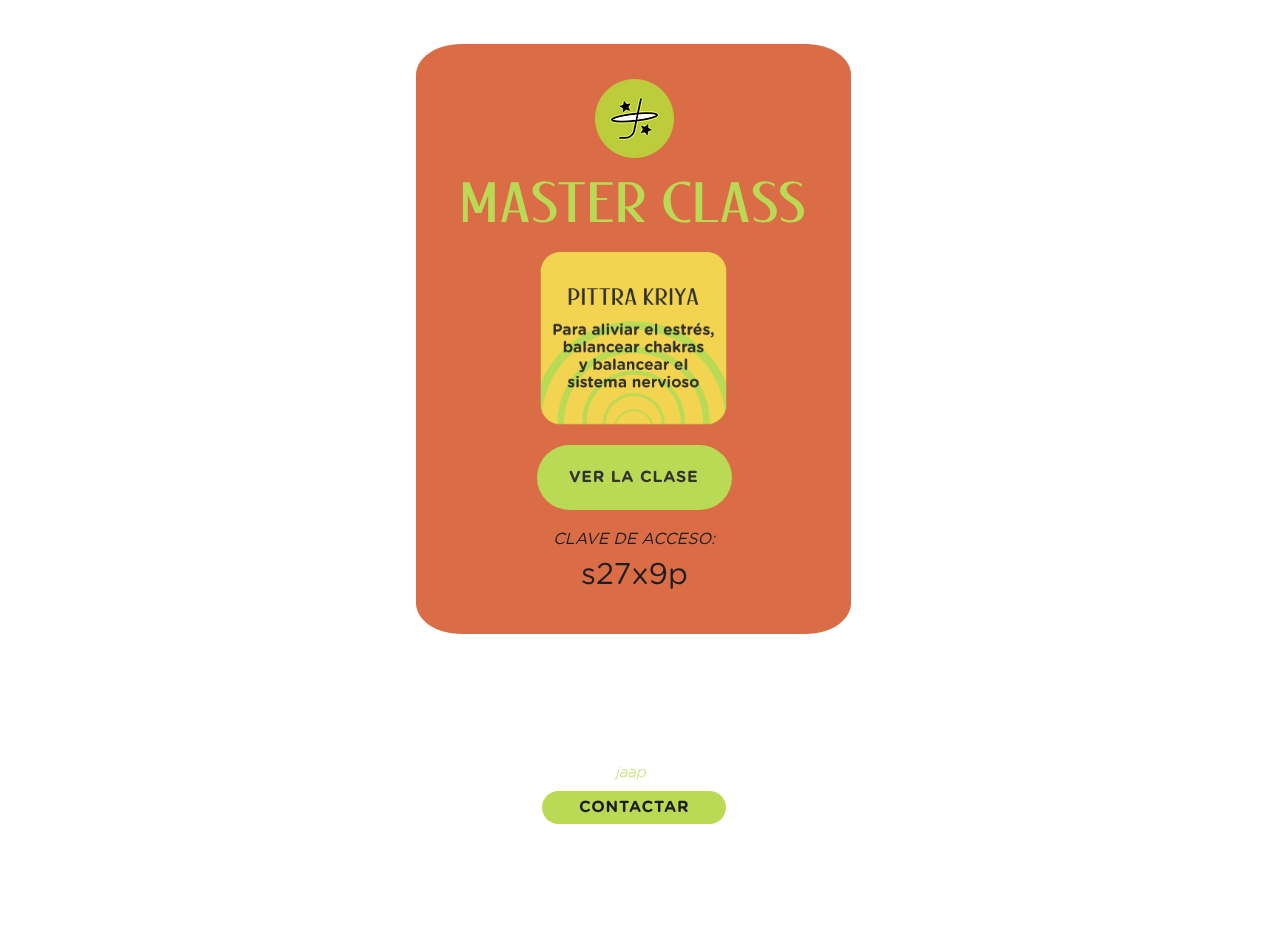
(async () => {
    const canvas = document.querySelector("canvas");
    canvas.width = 1272;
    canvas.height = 946;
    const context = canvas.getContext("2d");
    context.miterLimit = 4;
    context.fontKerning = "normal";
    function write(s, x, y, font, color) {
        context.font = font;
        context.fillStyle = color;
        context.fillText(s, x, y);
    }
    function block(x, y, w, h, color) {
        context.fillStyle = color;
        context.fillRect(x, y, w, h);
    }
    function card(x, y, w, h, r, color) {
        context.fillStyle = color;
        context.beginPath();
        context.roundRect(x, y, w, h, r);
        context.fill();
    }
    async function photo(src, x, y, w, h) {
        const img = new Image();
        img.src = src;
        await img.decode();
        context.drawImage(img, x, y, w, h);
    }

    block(0, 0, 1272, 946, "rgb(255, 255, 255)");
    context.fillStyle = "rgb(218, 109, 70)";
    context.beginPath();
    context.moveTo(806, 634);
    context.lineTo(461, 634);
    context.bezierCurveTo(436, 634, 416, 620, 416, 603);
    context.lineTo(416, 75);
    context.bezierCurveTo(416, 58, 436, 44, 461, 44);
    context.lineTo(806, 44);
    context.bezierCurveTo(831, 44, 851, 58, 851, 75);
    context.lineTo(851, 603);
    context.bezierCurveTo(851, 620, 831, 634, 806, 634);
    context.closePath();
    context.fill();
    await photo("media/1.png", 595, 79, 79, 79);
    write("MASTER CLASS", 460, 222, "800 51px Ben", "rgb(186, 218, 85)");
    await photo("media/2.png", 540, 252, 187, 173);
    card(537, 445, 195, 65, 32.5, "rgb(186, 218, 85)");
    context.letterSpacing = "0.75px";
    write("VER LA CLASE", 569, 482, "bold 16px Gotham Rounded", "rgb(50, 50, 50)");
    context.letterSpacing = "0px";
    write("CLAVE DE ACCESO:", 553, 544, "italic 16px Gotham Rounded", "rgb(29, 29, 29)");
    write("s27x9p", 581, 584, "30px Gotham Rounded", "rgb(29, 29, 29)");
    write("jaap", 616, 777, "italic 300 15px Gotham Rounded", "rgb(186, 218, 85)");
    card(542, 791, 184, 33, 16.5, "rgb(186, 218, 85)");
    context.letterSpacing = "0.75px";
    write("CONTACTAR", 579, 812, "bold 16px Gotham Rounded", "rgb(29, 29, 29)");
})();
